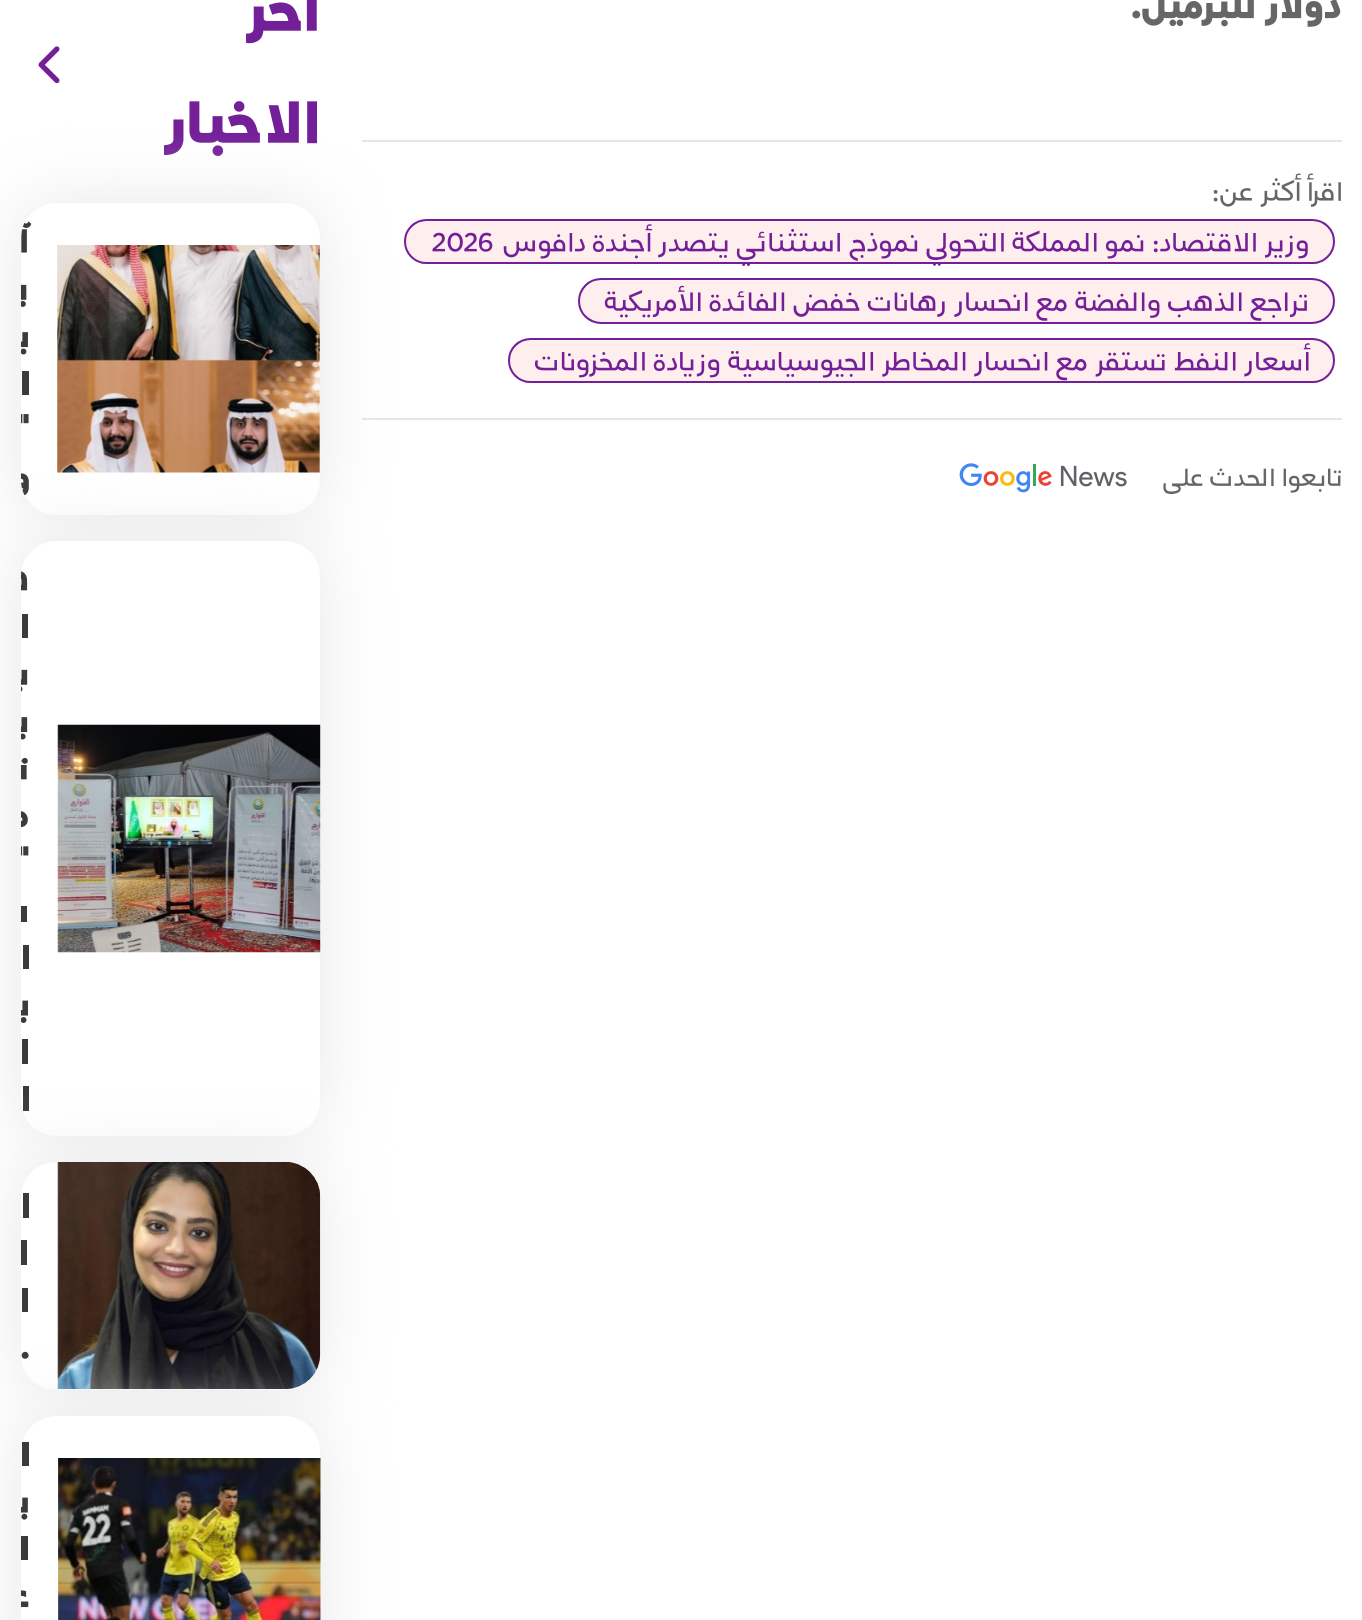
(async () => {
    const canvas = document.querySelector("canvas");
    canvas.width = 1362;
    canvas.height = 1620;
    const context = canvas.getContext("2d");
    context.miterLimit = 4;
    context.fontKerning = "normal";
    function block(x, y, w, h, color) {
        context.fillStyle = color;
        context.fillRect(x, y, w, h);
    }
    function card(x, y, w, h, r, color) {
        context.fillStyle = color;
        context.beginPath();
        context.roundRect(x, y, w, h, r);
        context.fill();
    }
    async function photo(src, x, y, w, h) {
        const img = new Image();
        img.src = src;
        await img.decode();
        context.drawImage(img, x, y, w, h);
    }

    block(0, 0, 1362, 1620, "rgb(255, 255, 255)");
    await photo("media/1.png", 38, 46, 22, 38);
    await photo("media/2.png", 246, 0, 71, 44);
    await photo("media/3.png", 164, 101, 154, 55);
    block(362, 140, 980, 2, "rgb(230, 230, 230)");
    context.fillStyle = "rgb(254, 238, 238)";
    context.beginPath();
    context.roundRect(405, 220, 929, 43, 21.5);
    context.fill();
    context.strokeStyle = "rgb(115, 31, 152)";
    context.lineWidth = 2;
    context.stroke();
    block(362, 418, 980, 2, "rgb(230, 230, 230)");
    context.fillStyle = "rgb(231, 231, 231)";
    context.filter = "blur(35px)";
    context.beginPath();
    context.roundRect(21, 203, 299, 312, 35);
    context.fill();
    context.filter = "none";
    card(21, 203, 299, 312, 35, "rgb(255, 255, 255)");
    await photo("media/4.png", 21, 221, 11, 32);
    await photo("media/5.png", 21, 284, 6, 23);
    await photo("media/6.png", 21, 332, 7, 23);
    block(22, 371, 7, 24, "rgb(59, 59, 59)");
    await photo("media/7.png", 21, 414, 8, 10);
    await photo("media/8.png", 21, 473, 8, 23);
    await photo("media/9.png", 57, 245, 263, 228);
    context.fillStyle = "rgb(231, 231, 231)";
    context.filter = "blur(35px)";
    context.beginPath();
    context.roundRect(21, 541, 299, 595, 35);
    context.fill();
    context.filter = "none";
    card(21, 541, 299, 595, 35, "rgb(255, 255, 255)");
    await photo("media/10.png", 21, 571, 7, 20);
    block(22, 614, 6, 24, "rgb(59, 59, 59)");
    await photo("media/11.png", 21, 669, 7, 23);
    await photo("media/12.png", 21, 717, 7, 23);
    await photo("media/13.png", 21, 757, 7, 23);
    await photo("media/14.png", 21, 811, 7, 17);
    await photo("media/15.png", 21, 846, 8, 10);
    block(21, 906, 6, 16, "rgb(59, 59, 59)");
    block(23, 945, 6, 24, "rgb(59, 59, 59)");
    await photo("media/16.png", 21, 1000, 7, 23);
    block(22, 1039, 6, 25, "rgb(59, 59, 59)");
    block(23, 1086, 6, 25, "rgb(59, 59, 59)");
    await photo("media/17.png", 57, 724, 264, 229);
    context.fillStyle = "rgb(231, 231, 231)";
    context.filter = "blur(35px)";
    context.beginPath();
    context.roundRect(21, 1162, 299, 228, 35);
    context.fill();
    context.filter = "none";
    card(21, 1162, 299, 228, 35, "rgb(255, 255, 255)");
    block(23, 1193, 6, 25, "rgb(59, 59, 59)");
    block(21, 1240, 6, 25, "rgb(59, 59, 59)");
    block(22, 1288, 6, 24, "rgb(59, 59, 59)");
    await photo("media/18.png", 21, 1351, 8, 8);
    await photo("media/19.png", 57, 1162, 264, 227);
    context.fillStyle = "rgb(231, 231, 231)";
    context.filter = "blur(35px)";
    context.beginPath();
    context.roundRect(21, 1416, 299, 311, 35);
    context.fill();
    context.filter = "none";
    card(21, 1416, 299, 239, 35, "rgb(255, 255, 255)");
    block(22, 1442, 7, 24, "rgb(59, 59, 59)");
    await photo("media/20.png", 21, 1497, 7, 23);
    block(21, 1536, 7, 24, "rgb(59, 59, 59)");
    await photo("media/21.png", 21, 1590, 8, 18);
    await photo("media/22.png", 58, 1458, 263, 162);
    await photo("media/23.png", 1132, 0, 209, 27);
    await photo("media/24.png", 1213, 173, 128, 34);
    await photo("media/25.png", 432, 232, 61, 20);
    await photo("media/26.png", 503, 224, 805, 42);
    context.fillStyle = "rgb(254, 238, 238)";
    context.beginPath();
    context.roundRect(579, 279, 755, 44, 22);
    context.fill();
    context.stroke();
    await photo("media/27.png", 604, 285, 703, 36);
    context.beginPath();
    context.roundRect(509, 339, 825, 43, 21.5);
    context.fill();
    context.stroke();
    await photo("media/28.png", 534, 343, 777, 38);
    await photo("media/29.png", 959, 463, 168, 30);
    await photo("media/30.png", 1163, 468, 178, 27);
})();
